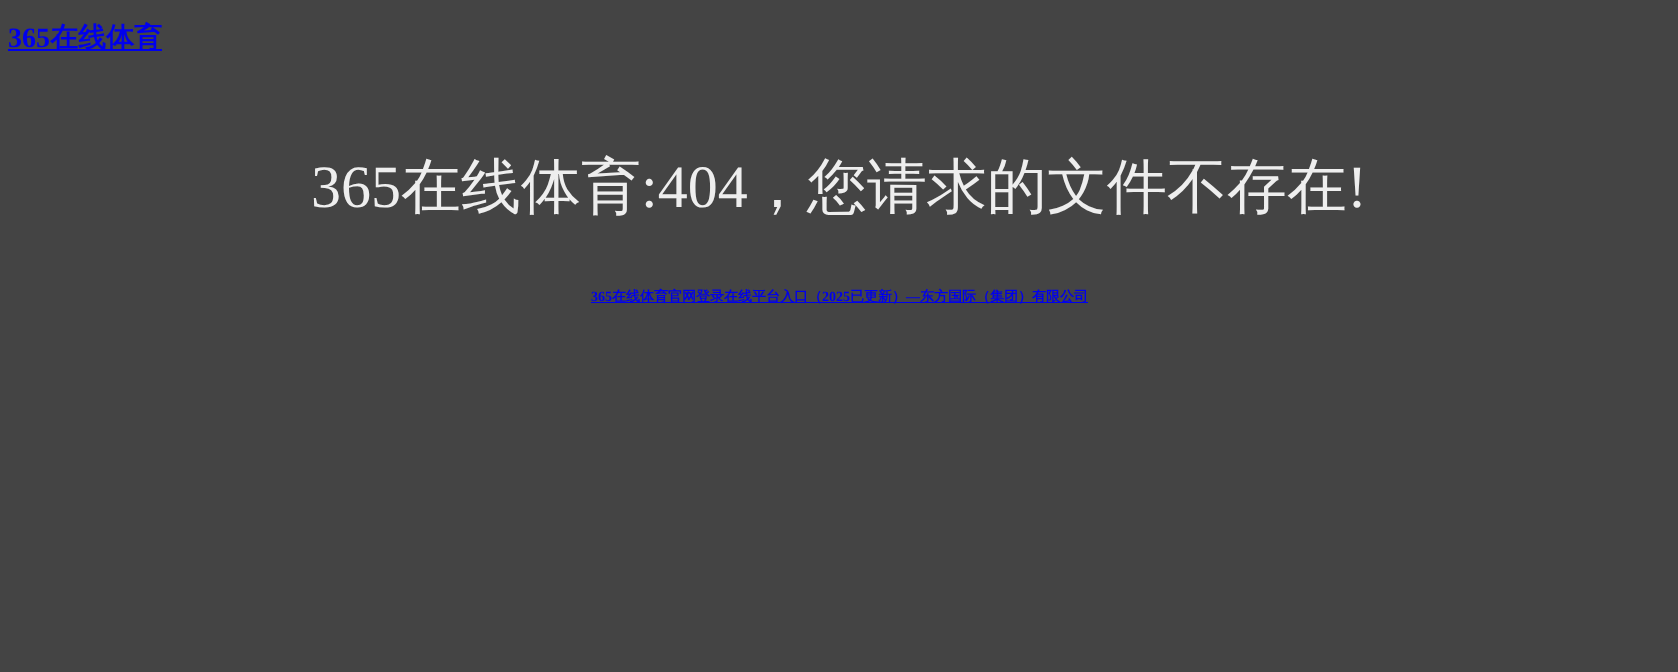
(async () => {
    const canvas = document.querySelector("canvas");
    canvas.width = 1678;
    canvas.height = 672;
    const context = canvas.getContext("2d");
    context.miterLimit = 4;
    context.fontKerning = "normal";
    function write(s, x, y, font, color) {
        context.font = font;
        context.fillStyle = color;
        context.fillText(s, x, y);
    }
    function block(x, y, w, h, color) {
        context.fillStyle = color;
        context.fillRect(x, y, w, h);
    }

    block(0, 0, 1678, 672, "rgb(68, 68, 68)");
    write("365", 8, 47, "bold 28px Liberation Serif", "rgb(0, 0, 238)");
    block(8, 49, 154, 2, "rgb(0, 0, 238)");
    write("在线体育", 50, 47, "bold 28px WenQuanYi Zen Hei", "rgb(0, 0, 238)");
    write("365", 311, 207, "60px Liberation Serif", "rgb(238, 238, 238)");
    write("在线体育", 401, 207, "500 60px WenQuanYi Zen Hei", "rgb(238, 238, 238)");
    write(":404", 641, 207, "60px Liberation Serif", "rgb(238, 238, 238)");
    write("，您请求的文件不存在", 747, 207, "500 60px WenQuanYi Zen Hei", "rgb(238, 238, 238)");
    write("!", 1347, 207, "60px Liberation Serif", "rgb(238, 238, 238)");
    write("365", 591, 301, "bold 14px Liberation Serif", "rgb(0, 0, 238)");
    block(591, 302, 497, 1, "rgb(0, 0, 238)");
    write("在线体育官网登录在线平台入口（", 612, 301, "bold 14px WenQuanYi Zen Hei", "rgb(0, 0, 238)");
    write("2025", 822, 301, "bold 14px Liberation Serif", "rgb(0, 0, 238)");
    write("已更新）", 850, 301, "bold 14px WenQuanYi Zen Hei", "rgb(0, 0, 238)");
    write("—", 906, 301, "bold 14px Liberation Serif", "rgb(0, 0, 238)");
    write("东方国际（集团）有限公司", 920, 301, "bold 14px WenQuanYi Zen Hei", "rgb(0, 0, 238)");
})();
